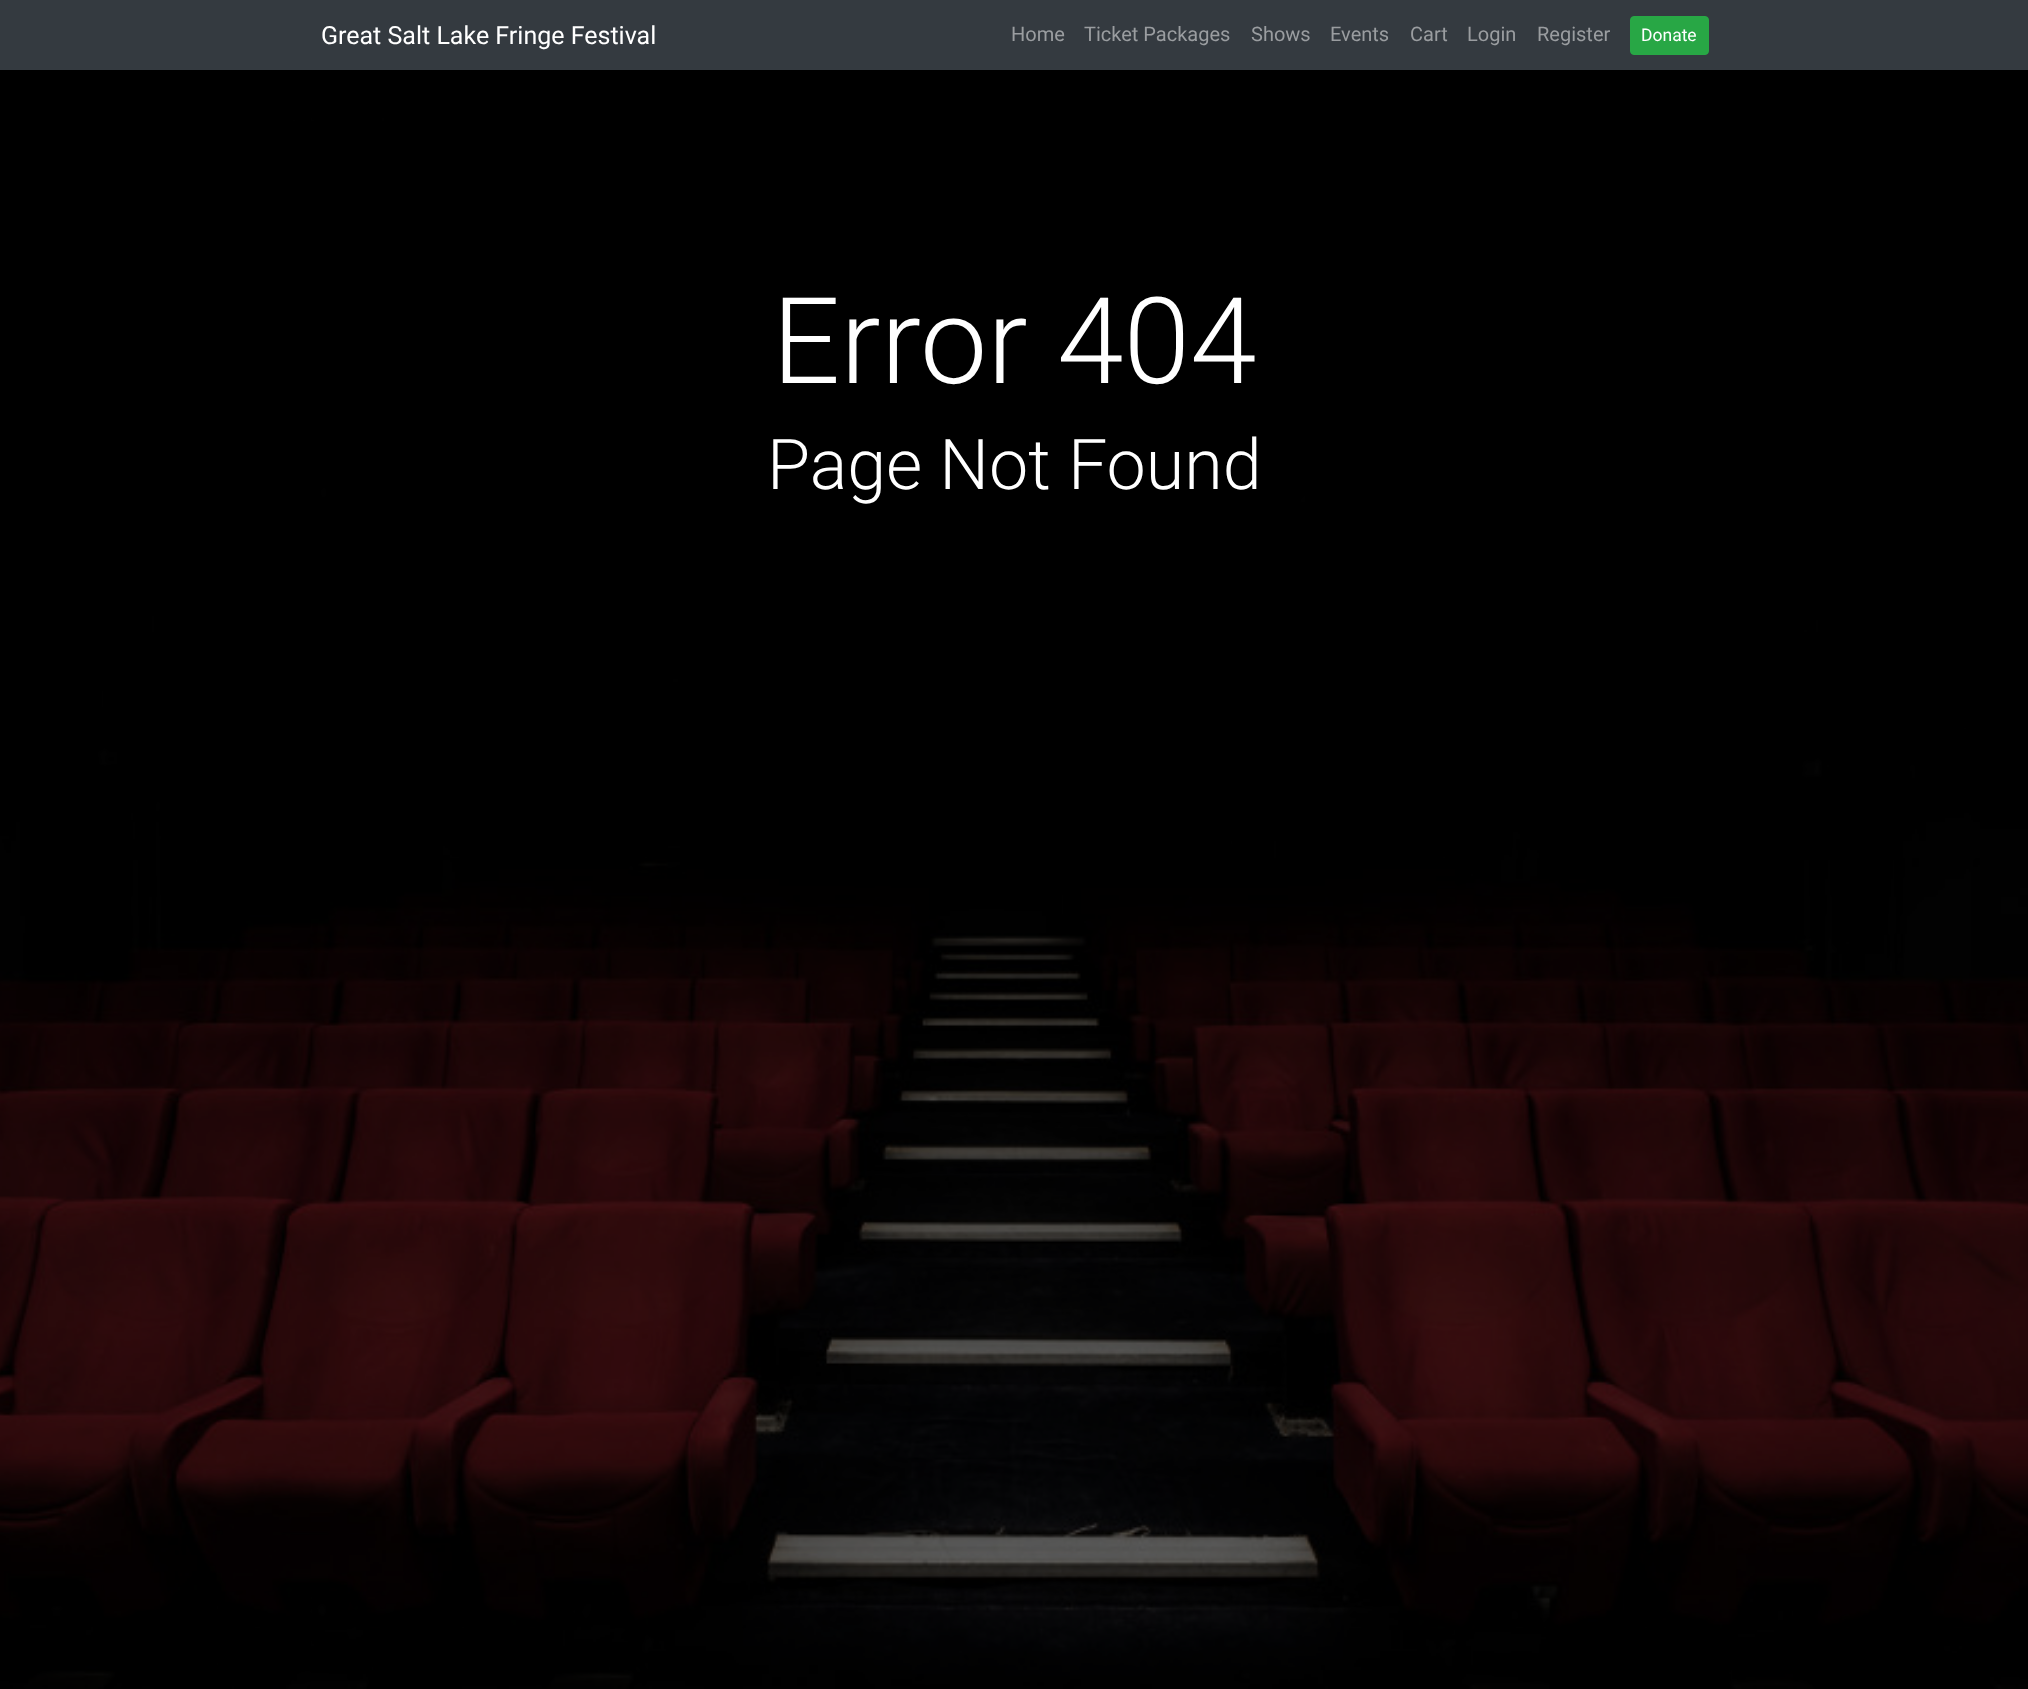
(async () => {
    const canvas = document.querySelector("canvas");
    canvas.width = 2028;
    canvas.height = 1689;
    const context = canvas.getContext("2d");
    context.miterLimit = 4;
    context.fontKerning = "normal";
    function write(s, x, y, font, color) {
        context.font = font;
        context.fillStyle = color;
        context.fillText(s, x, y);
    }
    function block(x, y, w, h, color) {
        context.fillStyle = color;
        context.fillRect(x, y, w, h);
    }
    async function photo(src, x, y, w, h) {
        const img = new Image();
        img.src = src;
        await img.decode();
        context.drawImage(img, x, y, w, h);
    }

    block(0, 0, 2028, 1689, "rgb(255, 255, 255)");
    block(0, 0, 2028, 70, "rgb(52, 58, 64)");
    write("Great Salt Lake Fringe Festival", 321, 44, "25px Roboto", "rgb(255, 255, 255)");
    write("Home", 1011, 41, "20px Roboto", "rgb(154, 157, 160)");
    write("Ticket Packages", 1084, 41, "20px Roboto", "rgb(154, 157, 160)");
    write("Shows", 1251, 41, "20px Roboto", "rgb(154, 157, 160)");
    write("Events", 1330, 41, "20px Roboto", "rgb(154, 157, 160)");
    write("Cart", 1410, 41, "20px Roboto", "rgb(154, 157, 160)");
    write("Login", 1467, 41, "20px Roboto", "rgb(154, 157, 160)");
    write("Register", 1537, 41, "20px Roboto", "rgb(154, 157, 160)");
    context.fillStyle = "rgb(40, 167, 69)";
    context.beginPath();
    context.roundRect(1630.5, 16.5, 78, 38, 3.5);
    context.fill();
    context.strokeStyle = "rgb(40, 167, 69)";
    context.stroke();
    write("Donate", 1641, 41, "17.5px Roboto", "rgb(255, 255, 255)");
    await photo("media/1.png", 0, 70, 2028, 1619);
    write("Error 404", 772, 383, "300 120px Roboto", "rgb(255, 255, 255)");
    write("Page Not Found", 767, 489, "300 70px Roboto", "rgb(255, 255, 255)");
})();
